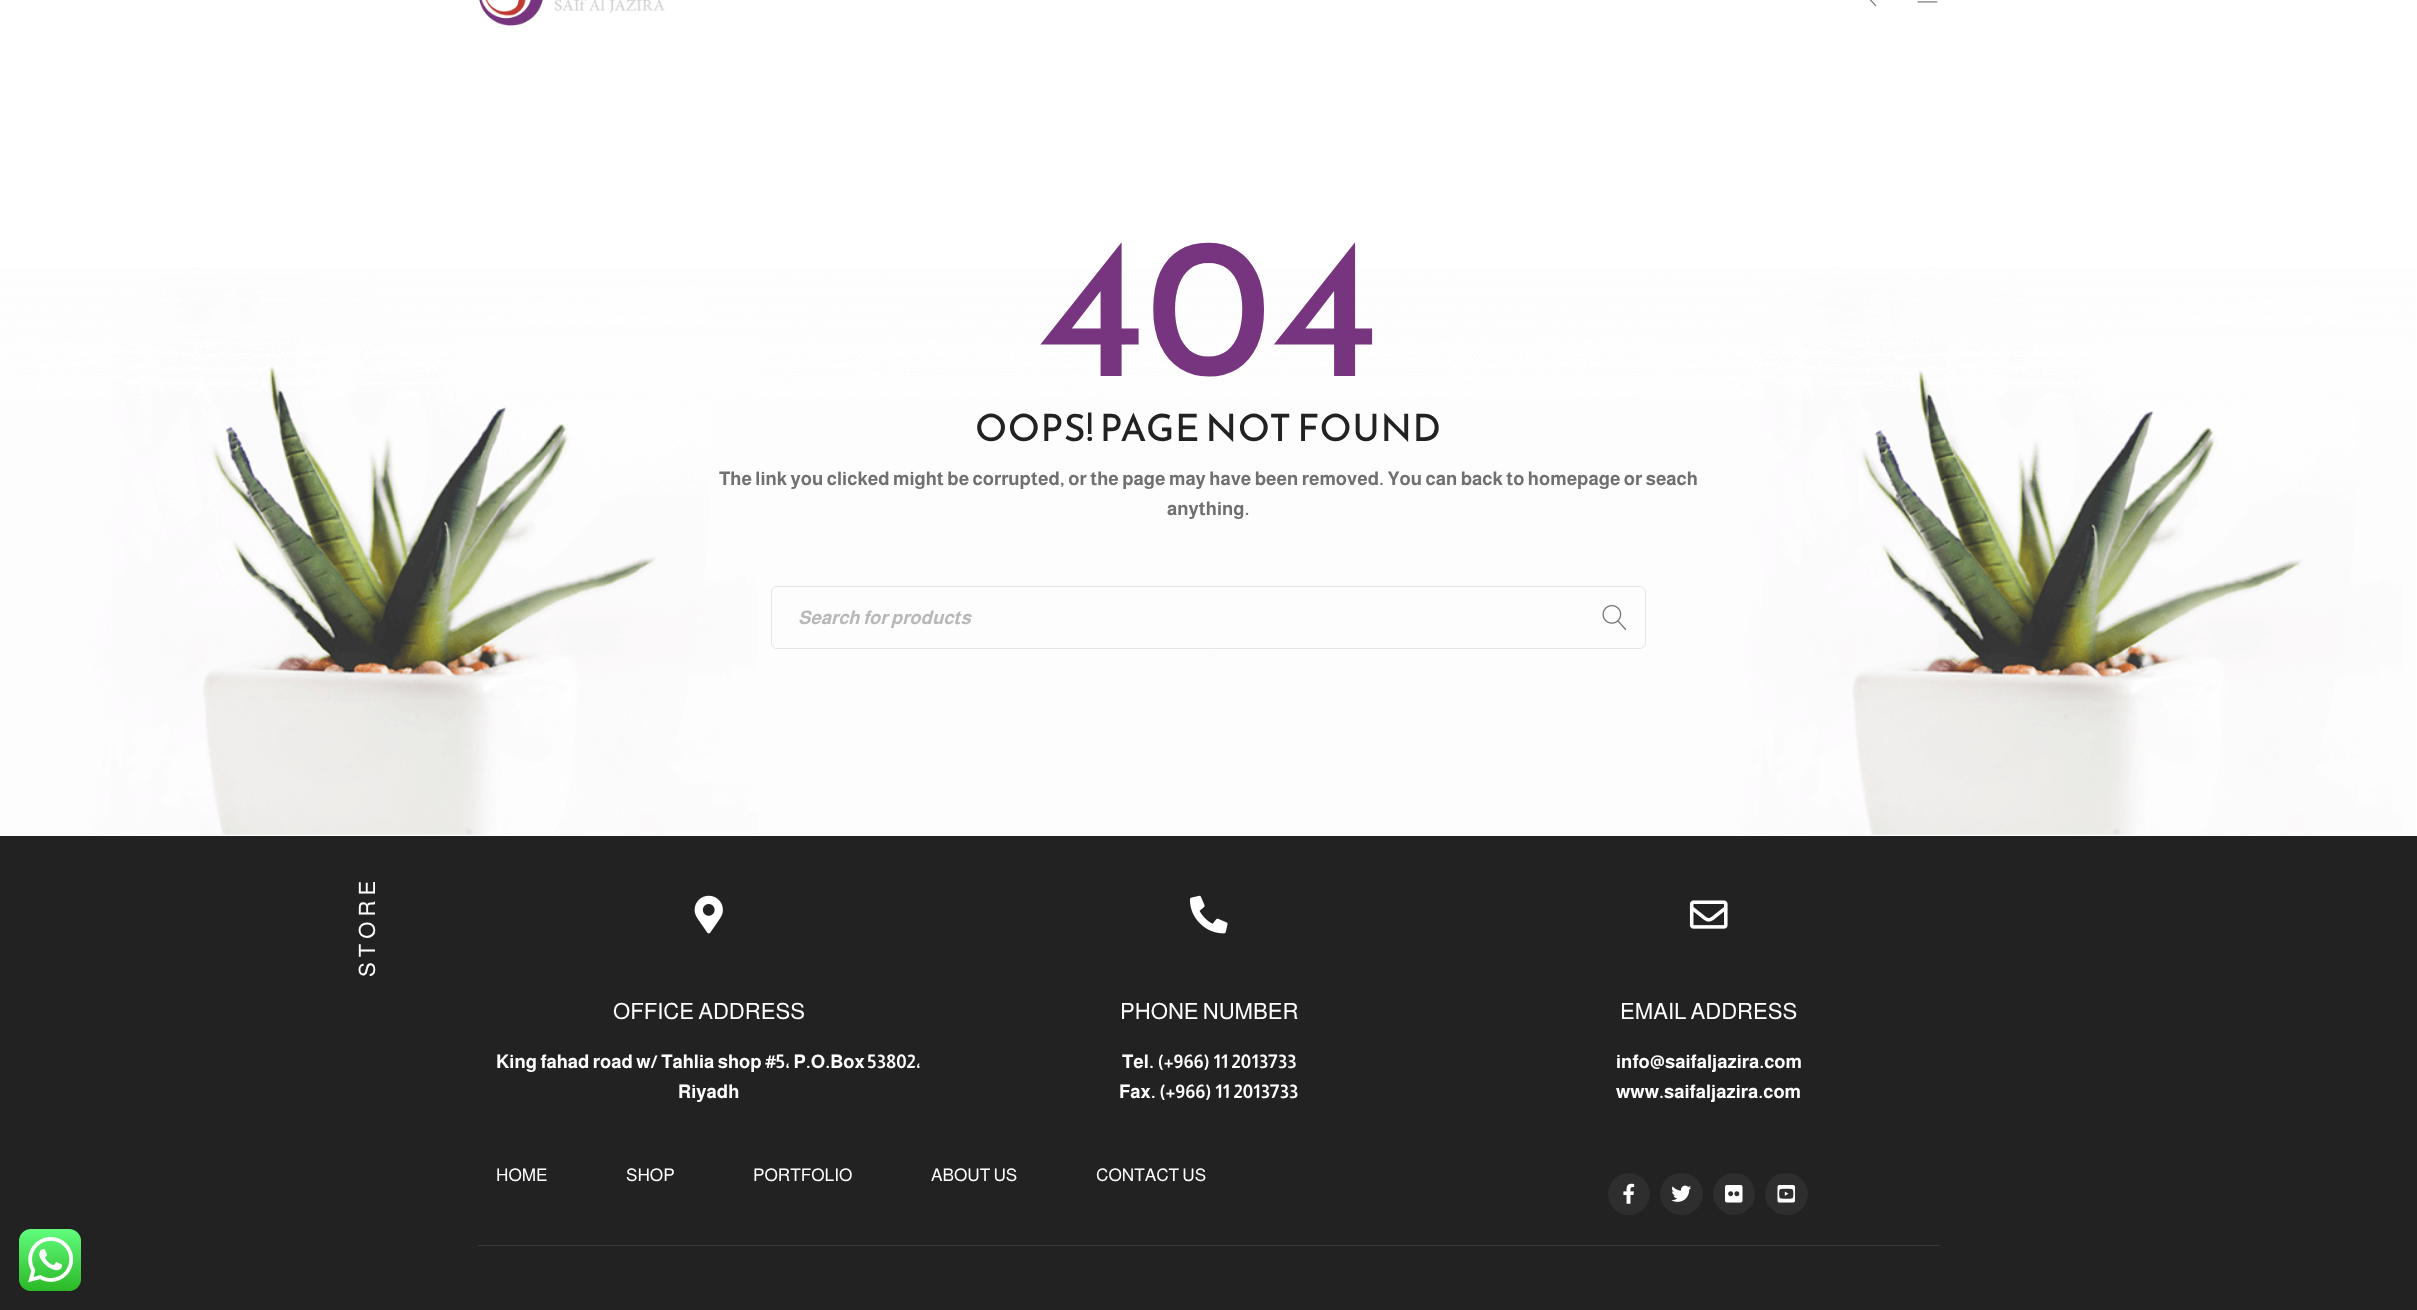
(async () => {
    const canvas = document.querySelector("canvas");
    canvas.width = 2417;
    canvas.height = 1310;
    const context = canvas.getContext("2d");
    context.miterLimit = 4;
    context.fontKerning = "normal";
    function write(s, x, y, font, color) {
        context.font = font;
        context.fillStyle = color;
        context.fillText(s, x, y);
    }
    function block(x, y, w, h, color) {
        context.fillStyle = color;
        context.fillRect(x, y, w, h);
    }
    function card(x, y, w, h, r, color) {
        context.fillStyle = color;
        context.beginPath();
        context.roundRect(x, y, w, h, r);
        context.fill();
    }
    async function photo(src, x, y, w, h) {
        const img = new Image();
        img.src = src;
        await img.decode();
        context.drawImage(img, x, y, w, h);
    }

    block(0, 0, 2417, 1310, "rgb(255, 255, 255)");
    await photo("media/1.png", 479, 0, 186, 26);
    await photo("media/2.png", 1869, 0, 8, 7);
    await photo("media/3.png", 1917, 1, 21, 2);
    await photo("media/4.png", 0, 267, 2416, 568);
    context.letterSpacing = "0.6px";
    write("404", 1038, 376, "200px Reem Kufi", "rgb(118, 53, 126)");
    write("OOPS! PAGE NOT FOUND", 975, 441, "37.5px Reem Kufi", "rgb(34, 34, 34)");
    context.letterSpacing = "0px";
    write("The link you clicked might be corrupted, or the page may have been removed. You can back to homepage or seach", 719, 485, "bold 18.75px Almarai", "rgb(112, 112, 112)");
    write("anything.", 1167, 515, "bold 18.75px Almarai", "rgb(112, 112, 112)");
    context.beginPath();
    context.roundRect(771.5, 586.5, 874, 62, 5.5);
    context.strokeStyle = "rgb(229, 229, 229)";
    context.stroke();
    write("Search for products", 798, 624, "italic bold 18.75px Almarai", "rgb(184, 184, 184)");
    await photo("media/5.png", 1602, 605, 25, 25);
    block(0, 836, 2417, 474, "rgb(34, 34, 34)");
    context.letterSpacing = "5px";
    context.font = "22.5px Almarai";
    context.fillStyle = "rgb(255, 255, 255)";
    context.save();
    context.translate(375, 977);
    context.rotate(-90 * Math.PI / 180);
    context.fillText("STORE", 0, 0);
    context.restore();
    await photo("media/6.png", 694, 895, 29, 39);
    context.letterSpacing = "0px";
    write("OFFICE ADDRESS", 613, 1019, "22.5px Almarai", "rgb(255, 255, 255)");
    write("King fahad road w/ Tahlia shop #5، P.O.Box 53802،", 496, 1068, "bold 18.75px Almarai", "rgb(255, 255, 255)");
    write("Riyadh", 678, 1098, "bold 18.75px Almarai", "rgb(255, 255, 255)");
    await photo("media/7.png", 1189, 895, 39, 39);
    write("PHONE NUMBER", 1120, 1019, "22.5px Almarai", "rgb(255, 255, 255)");
    write("Tel. (+966) 11 2013733", 1122, 1068, "bold 18.75px Almarai", "rgb(255, 255, 255)");
    write("Fax. (+966) 11 2013733", 1119, 1098, "bold 18.75px Almarai", "rgb(255, 255, 255)");
    await photo("media/8.png", 1689, 900, 39, 29);
    write("EMAIL ADDRESS", 1620, 1019, "22.5px Almarai", "rgb(255, 255, 255)");
    write("info@saifaljazira.com", 1616, 1068, "bold 18.75px Almarai", "rgb(255, 255, 255)");
    write("www.saifaljazira.com", 1616, 1098, "bold 18.75px Almarai", "rgb(255, 255, 255)");
    write("HOME", 496, 1181, "17.5px Almarai", "rgb(255, 255, 255)");
    write("SHOP", 626, 1181, "17.5px Almarai", "rgb(255, 255, 255)");
    write("PORTFOLIO", 753, 1181, "17.5px Almarai", "rgb(255, 255, 255)");
    write("ABOUT US", 931, 1181, "17.5px Almarai", "rgb(255, 255, 255)");
    write("CONTACT US", 1096, 1181, "17.5px Almarai", "rgb(255, 255, 255)");
    context.fillStyle = "rgb(46, 46, 46)";
    context.beginPath();
    context.arc(1629, 1194, 21, 0, Math.PI * 2);
    context.fill();
    await photo("media/9.png", 1623, 1183, 12, 21);
    card(1660, 1173, 43, 42, 21, "rgb(46, 46, 46)");
    await photo("media/10.png", 1671, 1185, 21, 17);
    context.beginPath();
    context.arc(1734, 1194, 21, 0, Math.PI * 2);
    context.fill();
    await photo("media/11.png", 1725, 1185, 18, 18);
    card(1765, 1173, 43, 42, 21, "rgb(46, 46, 46)");
    await photo("media/12.png", 1777, 1185, 18, 18);
    block(478, 1245, 1462, 1, "rgb(58, 58, 58)");
    await photo("media/13.png", 19, 1229, 62, 62);
})();
